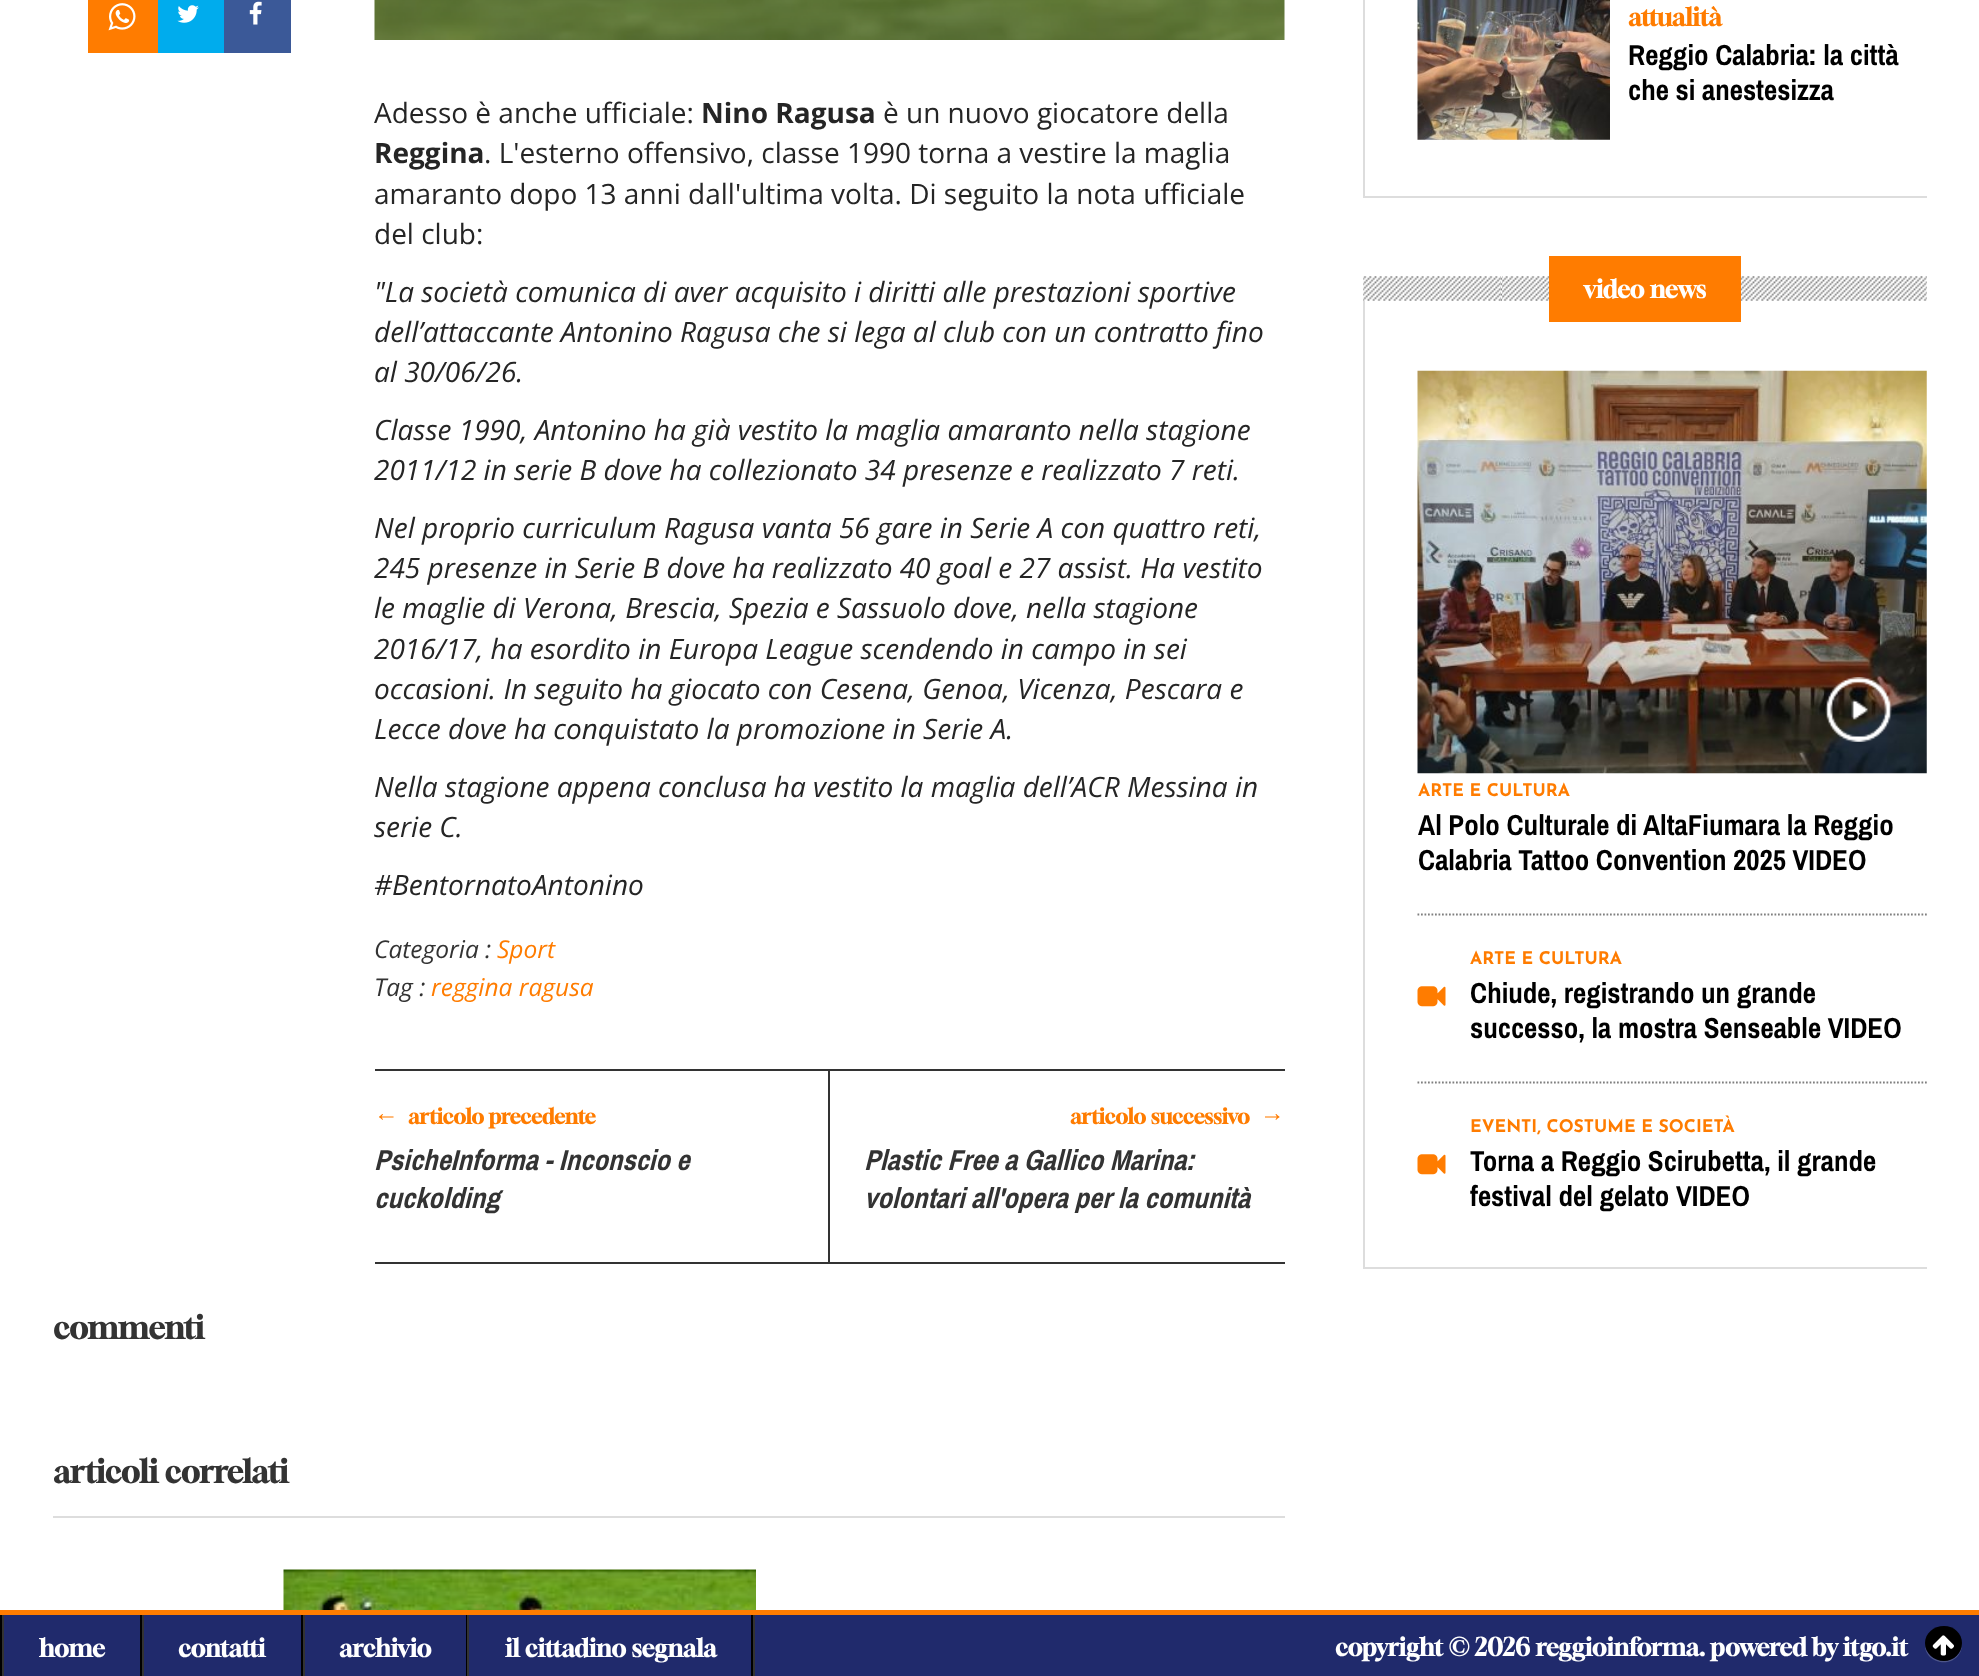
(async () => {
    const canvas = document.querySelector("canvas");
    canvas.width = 1979;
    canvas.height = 1676;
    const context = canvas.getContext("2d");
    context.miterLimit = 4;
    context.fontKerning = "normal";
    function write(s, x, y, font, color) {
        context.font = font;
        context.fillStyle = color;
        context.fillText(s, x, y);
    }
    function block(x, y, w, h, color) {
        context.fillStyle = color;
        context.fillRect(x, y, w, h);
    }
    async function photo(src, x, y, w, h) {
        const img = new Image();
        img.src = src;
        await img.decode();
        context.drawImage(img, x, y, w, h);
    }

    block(0, 0, 1979, 1676, "rgb(255, 255, 255)");
    block(88, 0, 70, 53, "rgb(255, 124, 0)");
    await photo("media/1.png", 108, 3, 28, 28);
    block(158, 0, 66, 53, "rgb(0, 172, 237)");
    await photo("media/2.png", 177, 5, 22, 18);
    block(224, 0, 67, 53, "rgb(59, 89, 152)");
    await photo("media/3.png", 249, 1, 13, 24);
    await photo("media/4.png", 374, 0, 911, 40);
    write("Adesso è anche ufficiale:", 374, 123, "28px Open Sans", "rgb(37, 37, 37)");
    write("Nino Ragusa", 701, 123, "bold 28px Open Sans", "rgb(37, 37, 37)");
    write("è un nuovo giocatore della", 883, 123, "28px Open Sans", "rgb(37, 37, 37)");
    write("Reggina", 374, 163, "bold 28px Open Sans", "rgb(37, 37, 37)");
    write(". L'esterno offensivo, classe 1990 torna a vestire la maglia", 484, 163, "28px Open Sans", "rgb(37, 37, 37)");
    write("amaranto dopo 13 anni dall'ultima volta. Di seguito la nota ufficiale", 374, 204, "28px Open Sans", "rgb(37, 37, 37)");
    write("del club:", 374, 244, "28px Open Sans", "rgb(37, 37, 37)");
    write("\"La società comunica di aver acquisito i diritti alle prestazioni sportive", 374, 302, "italic 28px Open Sans", "rgb(37, 37, 37)");
    write("dell’attaccante Antonino Ragusa che si lega al club con un contratto fino", 374, 342, "italic 28px Open Sans", "rgb(37, 37, 37)");
    write("al 30/06/26.", 374, 382, "italic 28px Open Sans", "rgb(37, 37, 37)");
    write("Classe 1990, Antonino ha già vestito la maglia amaranto nella stagione", 374, 440, "italic 28px Open Sans", "rgb(37, 37, 37)");
    write("2011/12 in serie B dove ha collezionato 34 presenze e realizzato 7 reti.", 374, 480, "italic 28px Open Sans", "rgb(37, 37, 37)");
    write("Nel proprio curriculum Ragusa vanta 56 gare in Serie A con quattro reti,", 374, 538, "italic 28px Open Sans", "rgb(37, 37, 37)");
    write("245 presenze in Serie B dove ha realizzato 40 goal e 27 assist. Ha vestito", 374, 578, "italic 28px Open Sans", "rgb(37, 37, 37)");
    write("le maglie di Verona, Brescia, Spezia e Sassuolo dove, nella stagione", 374, 618, "italic 28px Open Sans", "rgb(37, 37, 37)");
    write("2016/17, ha esordito in Europa League scendendo in campo in sei", 374, 659, "italic 28px Open Sans", "rgb(37, 37, 37)");
    write("occasioni. In seguito ha giocato con Cesena, Genoa, Vicenza, Pescara e", 374, 699, "italic 28px Open Sans", "rgb(37, 37, 37)");
    write("Lecce dove ha conquistato la promozione in Serie A.", 374, 739, "italic 28px Open Sans", "rgb(37, 37, 37)");
    write("Nella stagione appena conclusa ha vestito la maglia dell’ACR Messina in", 374, 797, "italic 28px Open Sans", "rgb(37, 37, 37)");
    write("serie C.", 374, 837, "italic 28px Open Sans", "rgb(37, 37, 37)");
    write("#BentornatoAntonino", 374, 895, "italic 28px Open Sans", "rgb(37, 37, 37)");
    write("Categoria :", 374, 958, "italic 24.5px Open Sans", "rgb(51, 51, 51)");
    write("Sport", 497, 958, "italic 24.5px Open Sans", "rgb(255, 124, 0)");
    write("Tag :", 374, 996, "italic 24.5px Open Sans", "rgb(51, 51, 51)");
    write("reggina ragusa", 431, 996, "italic 24.5px Open Sans", "rgb(255, 124, 0)");
    block(375, 1069, 910, 2, "rgb(51, 51, 51)");
    block(375, 1262, 910, 2, "rgb(51, 51, 51)");
    block(828, 1071, 2, 191, "rgb(51, 51, 51)");
    write("←", 374, 1121, "italic bold 24.5px Liberation Serif", "rgb(255, 124, 0)");
    write("articolo precedente", 408, 1124, "bold 21px Gloock", "rgb(255, 124, 0)");
    write("PsicheInforma - Inconscio e", 374, 1170, "italic bold 31.5px Pragati Narrow", "rgb(51, 51, 51)");
    write("cuckolding", 374, 1208, "italic bold 31.5px Pragati Narrow", "rgb(51, 51, 51)");
    write("articolo successivo", 1070, 1124, "bold 21px Gloock", "rgb(255, 124, 0)");
    write("→", 1260, 1121, "italic bold 24.5px Liberation Serif", "rgb(255, 124, 0)");
    write("Plastic Free a Gallico Marina:", 864, 1170, "italic bold 31.5px Pragati Narrow", "rgb(51, 51, 51)");
    write("volontari all'opera per la comunità", 864, 1208, "italic bold 31.5px Pragati Narrow", "rgb(51, 51, 51)");
    write("commenti", 53, 1339, "bold 31.5px Gloock", "rgb(51, 51, 51)");
    write("articoli correlati", 53, 1483, "bold 31.5px Gloock", "rgb(51, 51, 51)");
    block(53, 1516, 1232, 2, "rgb(221, 221, 221)");
    await photo("media/5.png", 283, 1569, 473, 41);
    block(1363, 196, 564, 2, "rgb(221, 221, 221)");
    block(1363, 0, 2, 198, "rgb(221, 221, 221)");
    await photo("media/6.png", 1417, 0, 193, 140);
    write("attualità", 1628, 26, "bold 24.5px Gloock", "rgb(255, 124, 0)");
    write("Reggio Calabria: la città", 1628, 65, "bold 31.5px Pragati Narrow", "rgb(0, 0, 0)");
    write("che si anestesizza", 1628, 100, "bold 31.5px Pragati Narrow", "rgb(0, 0, 0)");
    await photo("media/7.png", 1363, 276, 564, 25);
    block(1549, 256, 192, 66, "rgb(255, 124, 0)");
    write("video news", 1584, 298, "bold 24.5px Gloock", "rgb(255, 255, 255)");
    block(1363, 1267, 564, 2, "rgb(221, 221, 221)");
    block(1363, 301, 2, 968, "rgb(221, 221, 221)");
    context.beginPath();
    context.moveTo(1417.5, 914.5);
    context.lineTo(1927, 914.5);
    context.strokeStyle = "rgb(127, 127, 127)";
    context.lineWidth = 1.8;
    context.setLineDash([1.75, 1.75]);
    context.stroke();
    await photo("media/8.png", 1417, 370, 510, 404);
    await photo("media/9.png", 1825, 677, 67, 65);
    write("ARTE E CULTURA", 1418, 796, "bold 17.5px Josefin Sans", "rgb(255, 124, 0)");
    write("Al Polo Culturale di AltaFiumara la Reggio", 1418, 835, "bold 31.5px Pragati Narrow", "rgb(0, 0, 0)");
    write("Calabria Tattoo Convention 2025 VIDEO", 1418, 870, "bold 31.5px Pragati Narrow", "rgb(0, 0, 0)");
    context.beginPath();
    context.moveTo(1417.5, 1082.5);
    context.lineTo(1927, 1082.5);
    context.stroke();
    write("ARTE E CULTURA", 1470, 964, "bold 17.5px Josefin Sans", "rgb(255, 124, 0)");
    await photo("media/10.png", 1417, 986, 29, 21);
    write("Chiude, registrando un grande", 1470, 1003, "bold 31.5px Pragati Narrow", "rgb(0, 0, 0)");
    write("successo, la mostra Senseable VIDEO", 1470, 1038, "bold 31.5px Pragati Narrow", "rgb(0, 0, 0)");
    write("EVENTI, COSTUME E SOCIETÀ", 1470, 1132, "bold 17.5px Josefin Sans", "rgb(255, 124, 0)");
    await photo("media/10.png", 1417, 1154, 29, 21);
    write("Torna a Reggio Scirubetta, il grande", 1470, 1171, "bold 31.5px Pragati Narrow", "rgb(0, 0, 0)");
    write("festival del gelato VIDEO", 1470, 1206, "bold 31.5px Pragati Narrow", "rgb(0, 0, 0)");
    block(4, 1615, 1975, 61, "rgb(32, 42, 108)");
    block(0, 1610, 1979, 5, "rgb(255, 124, 0)");
    block(753, 1615, 2, 61, "rgb(51, 51, 51)");
    block(0, 1615, 2, 61, "rgb(0, 0, 0)");
    block(140, 1615, 2, 61, "rgb(0, 0, 0)");
    block(2, 1615, 2, 61, "rgb(51, 51, 51)");
    write("home", 39, 1657, "bold 24.5px Gloock", "rgb(255, 255, 255)");
    block(301, 1615, 2, 61, "rgb(0, 0, 0)");
    block(142, 1615, 2, 61, "rgb(51, 51, 51)");
    write("contatti", 178, 1657, "bold 24.5px Gloock", "rgb(255, 255, 255)");
    block(466, 1615, 1, 61, "rgb(0, 0, 0)");
    block(303, 1615, 2, 61, "rgb(51, 51, 51)");
    write("archivio", 339, 1657, "bold 24.5px Gloock", "rgb(255, 255, 255)");
    block(751, 1615, 2, 61, "rgb(0, 0, 0)");
    block(467, 1615, 2, 61, "rgb(51, 51, 51)");
    write("il cittadino segnala", 505, 1657, "bold 24.5px Gloock", "rgb(255, 255, 255)");
    write("copyright © 2026 reggioinforma. powered by itgo.it", 1335, 1656, "bold 24.5px Gloock", "rgb(255, 255, 255)");
    context.fillStyle = "rgb(77, 85, 137)";
    context.beginPath();
    context.moveTo(1925, 1644);
    context.bezierCurveTo(1924, 1662, 1949, 1669, 1959, 1654.5);
    context.bezierCurveTo(1961.5, 1651, 1962.5, 1646, 1961.5, 1642);
    context.bezierCurveTo(1962, 1645.5, 1961, 1649.5, 1959, 1653);
    context.bezierCurveTo(1949.5, 1666.5, 1926, 1661, 1925, 1644);
    context.closePath();
    context.fill();
    context.fillStyle = "rgb(0, 0, 0)";
    context.beginPath();
    context.moveTo(1944, 1626);
    context.bezierCurveTo(1954, 1626, 1962, 1633.5, 1962, 1643);
    context.bezierCurveTo(1962, 1653, 1954, 1661, 1944, 1661);
    context.bezierCurveTo(1933.5, 1661, 1925, 1653, 1925, 1643);
    context.bezierCurveTo(1925, 1633.5, 1933.5, 1626, 1944, 1626);
    context.closePath();
    context.fill();
    await photo("media/11.png", 1932, 1635, 22, 21);
})();
